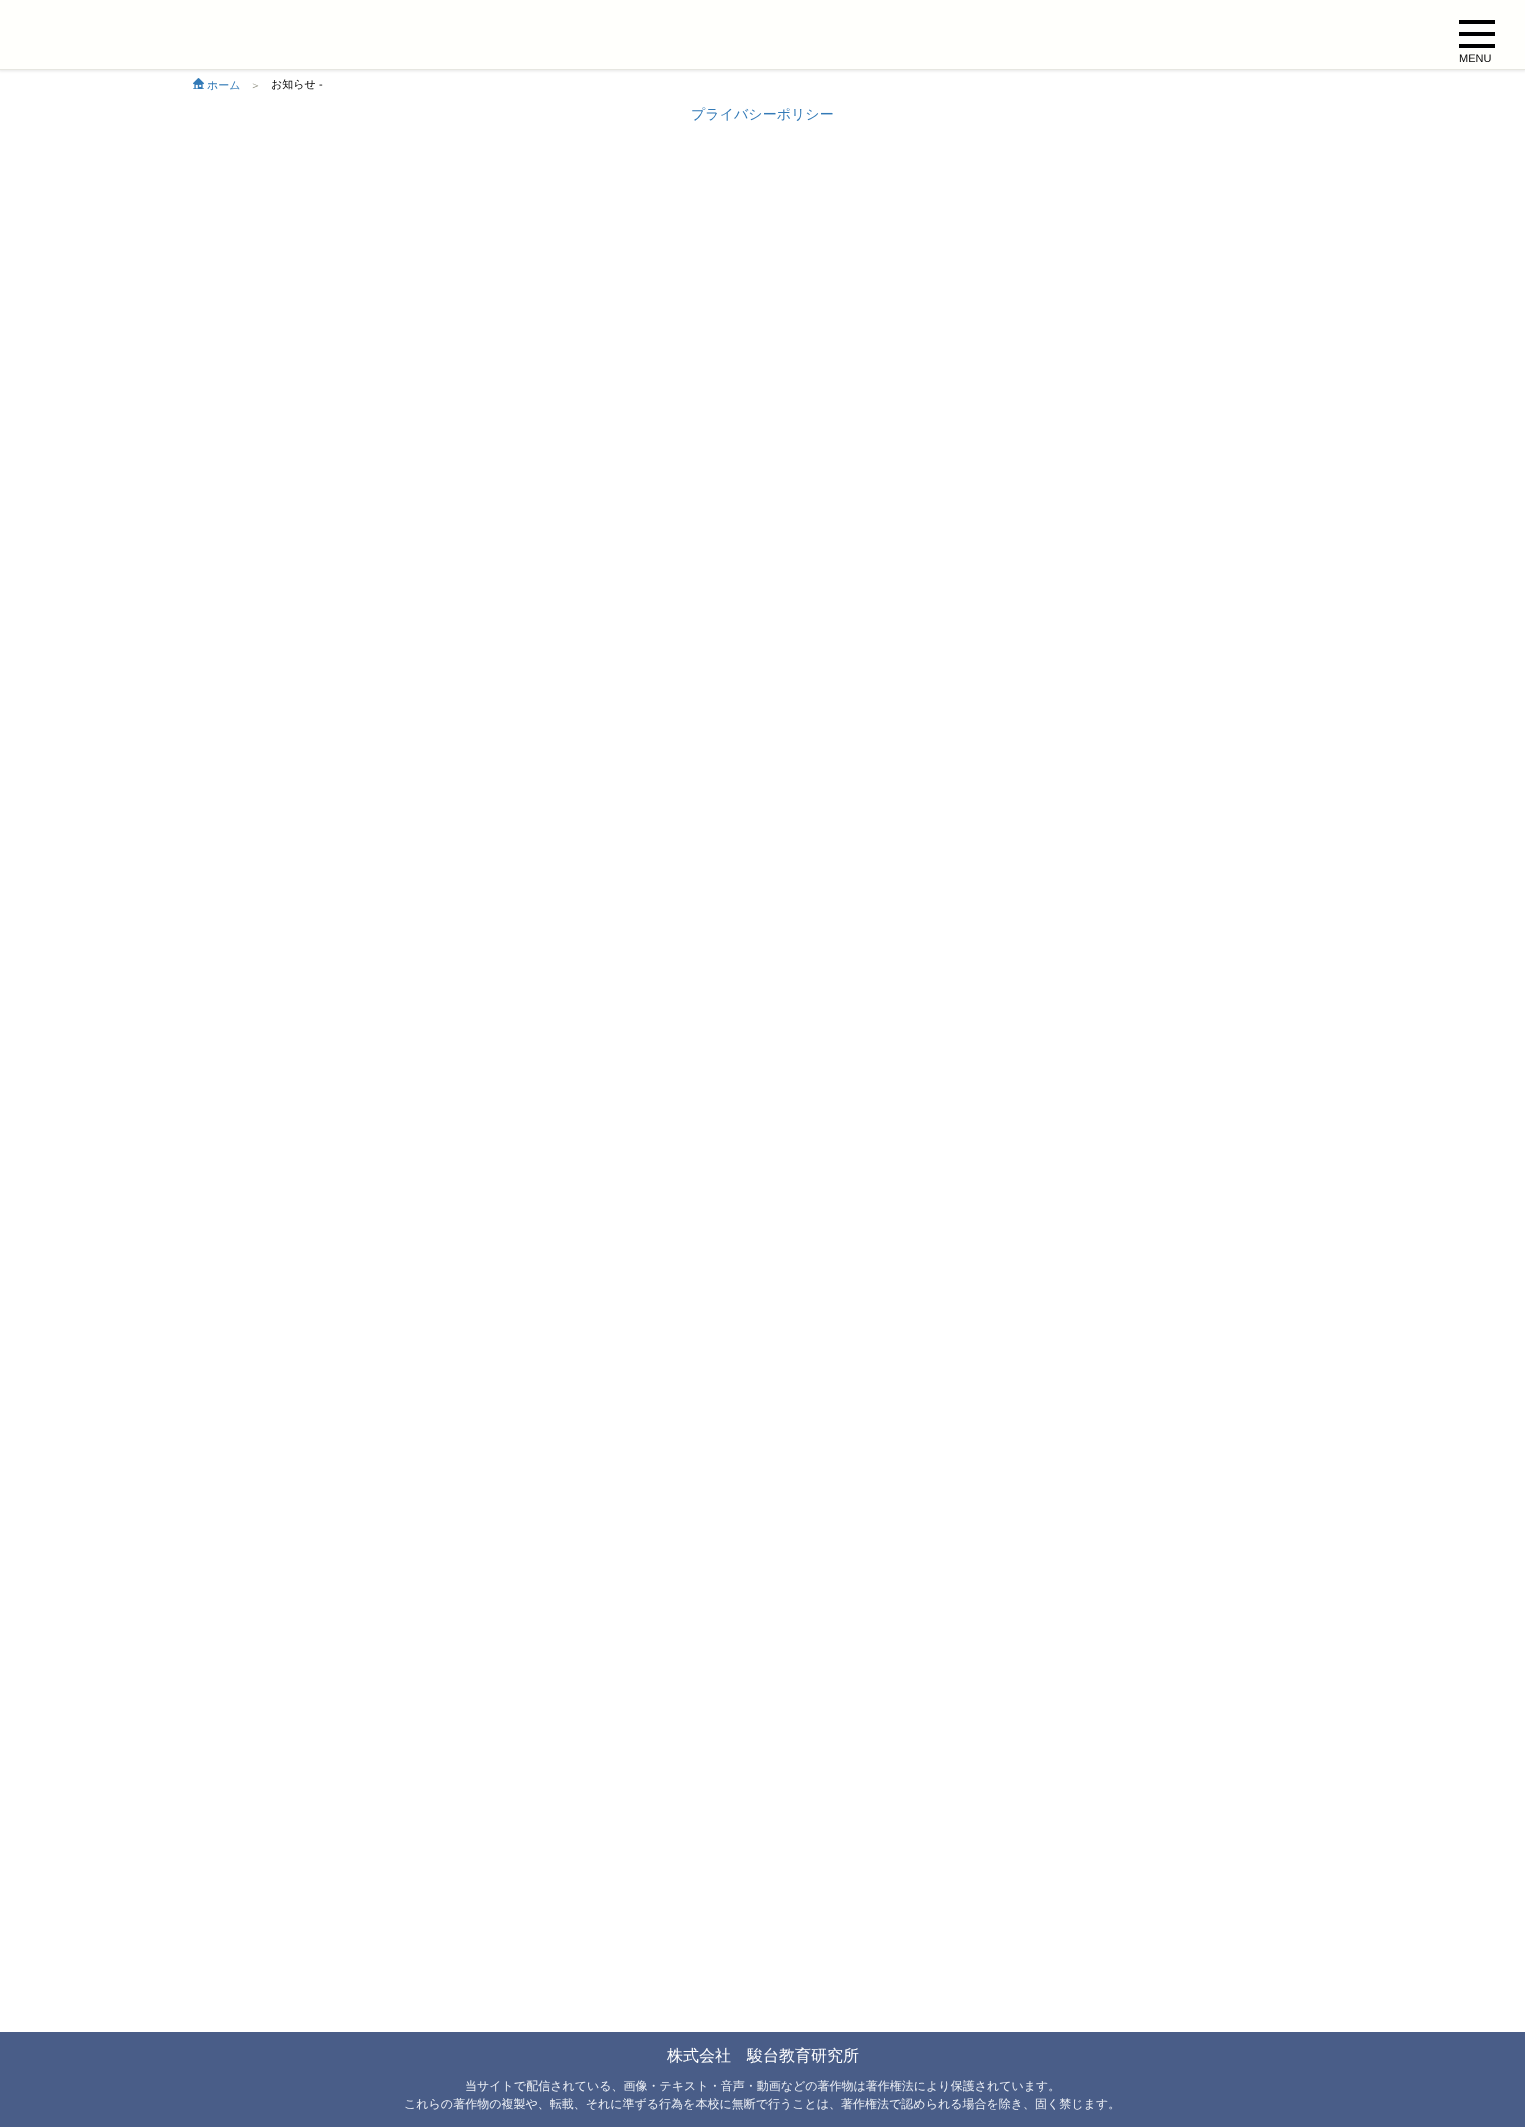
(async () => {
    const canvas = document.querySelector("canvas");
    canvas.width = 1525;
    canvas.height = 2127;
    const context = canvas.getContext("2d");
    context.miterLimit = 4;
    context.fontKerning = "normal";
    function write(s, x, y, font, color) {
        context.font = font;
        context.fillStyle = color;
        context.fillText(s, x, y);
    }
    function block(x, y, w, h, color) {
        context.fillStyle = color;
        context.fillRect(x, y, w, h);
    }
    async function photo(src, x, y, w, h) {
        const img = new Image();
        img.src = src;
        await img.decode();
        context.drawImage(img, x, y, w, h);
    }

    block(0, 0, 1525, 2127, "rgb(255, 255, 255)");
    context.fillStyle = "rgba(0, 0, 0, 0.1)";
    context.filter = "blur(1.5px)";
    context.beginPath();
    context.rect(-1, -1, 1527, 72);
    context.fill();
    context.filter = "none";
    block(0, 0, 1525, 69, "rgb(255, 255, 252)");
    block(0, 69, 1525, 1, "rgb(230, 230, 224)");
    block(1459, 20, 36, 4, "rgb(0, 0, 0)");
    block(1459, 32, 36, 4, "rgb(0, 0, 0)");
    block(1459, 44, 36, 4, "rgb(0, 0, 0)");
    write("MENU", 1459, 62, "11px Liberation Sans", "rgb(0, 0, 0)");
    await photo("media/1.png", 193, 78, 11, 11);
    write("ホーム", 207, 89, "500 11px WenQuanYi Zen Hei", "rgb(51, 122, 183)");
    write("＞", 250, 89, "500 11px WenQuanYi Zen Hei", "rgb(138, 138, 123)");
    write("お知らせ", 271, 88, "500 11px WenQuanYi Zen Hei", "rgb(0, 0, 0)");
    write("-", 319, 88, "11px Liberation Sans", "rgb(0, 0, 0)");
    write("プライバシーポリシー", 691, 119, "500 14px WenQuanYi Zen Hei", "rgb(51, 122, 183)");
    block(0, 2032, 1525, 95, "rgb(73, 93, 136)");
    write("株式会社　駿台教育研究所", 667, 2061, "500 16px WenQuanYi Zen Hei", "rgb(255, 255, 255)");
    write("当サイトで配信されている、画像・テキスト・音声・動画などの著作物は著作権法により保護されています。", 465, 2090, "500 12px WenQuanYi Zen Hei", "rgb(236, 239, 245)");
    write("これらの著作物の複製や、転載、それに準ずる行為を本校に無断で行うことは、著作権法で認められる場合を除き、固く禁じます。", 404, 2108, "500 12px WenQuanYi Zen Hei", "rgb(236, 239, 245)");
})();
